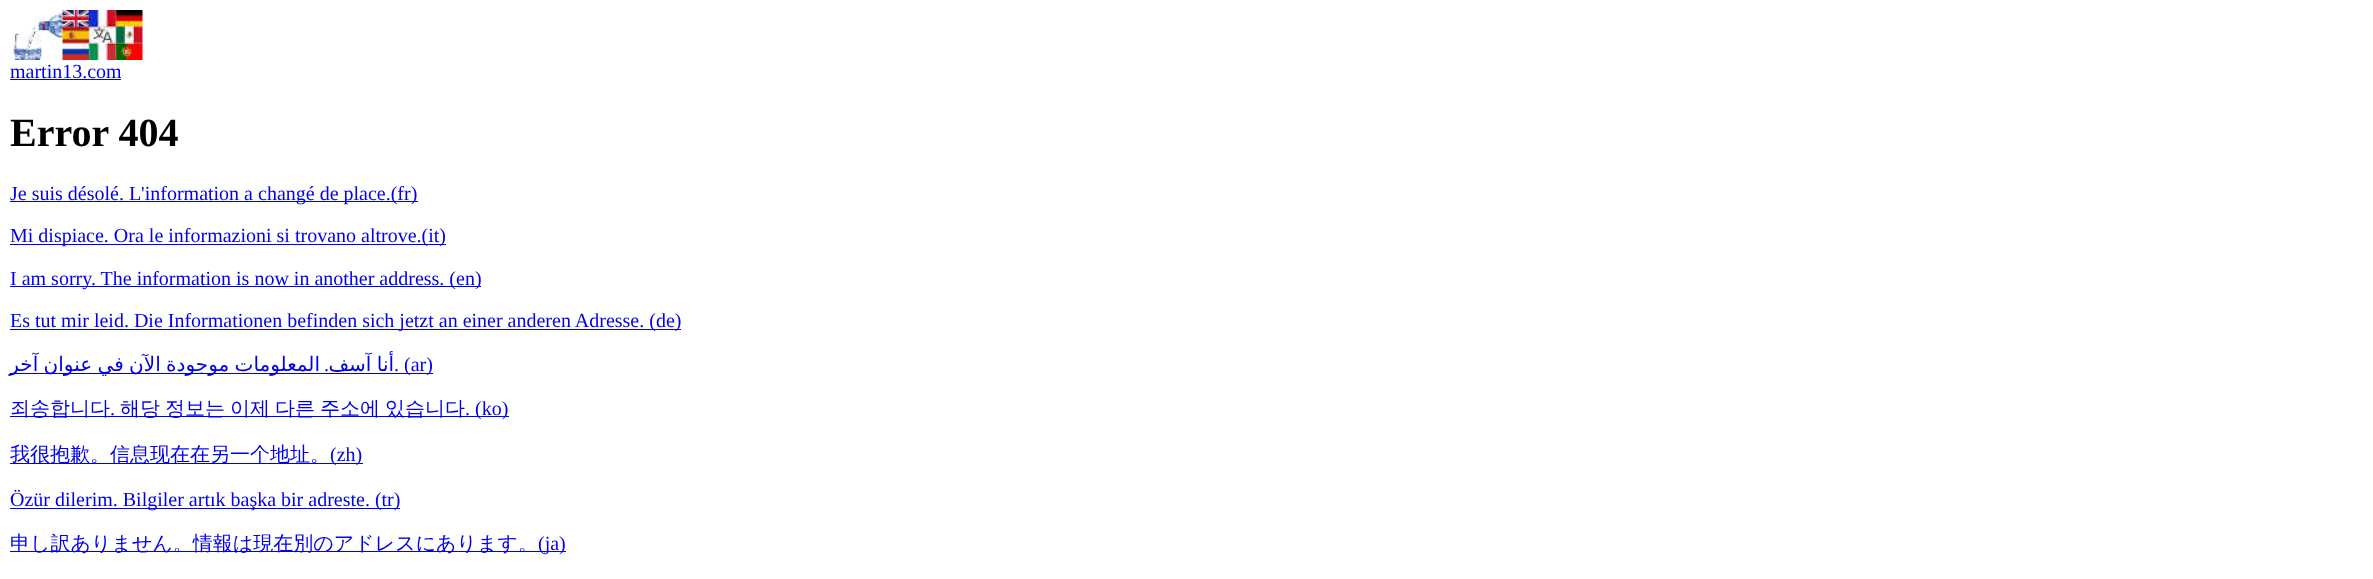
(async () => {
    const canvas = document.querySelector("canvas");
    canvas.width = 2373;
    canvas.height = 579;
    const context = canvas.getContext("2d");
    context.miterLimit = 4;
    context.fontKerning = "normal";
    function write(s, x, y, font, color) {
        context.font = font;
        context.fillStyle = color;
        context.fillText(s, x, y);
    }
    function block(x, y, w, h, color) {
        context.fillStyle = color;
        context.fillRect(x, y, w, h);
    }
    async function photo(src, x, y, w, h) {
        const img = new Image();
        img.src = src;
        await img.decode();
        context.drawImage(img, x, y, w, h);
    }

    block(0, 0, 2373, 579, "rgb(255, 255, 255)");
    await photo("media/1.png", 13, 12, 50, 48);
    await photo("media/2.png", 62, 10, 81, 50);
    write("martin13.com", 10, 78, "20px Liberation Serif", "rgb(0, 0, 238)");
    block(10, 79, 111, 1, "rgb(0, 0, 238)");
    write("Error 404", 10, 146, "bold 40px Liberation Serif", "rgb(0, 0, 0)");
    block(10, 201, 408, 1, "rgb(0, 0, 238)");
    write("Je suis désolé. L'information a changé de place.(fr)", 10, 200, "20px Liberation Serif", "rgb(0, 0, 238)");
    block(10, 244, 436, 1, "rgb(0, 0, 238)");
    write("Mi dispiace. Ora le informazioni si trovano altrove.(it)", 10, 242, "20px Liberation Serif", "rgb(0, 0, 238)");
    block(10, 286, 471, 1, "rgb(0, 0, 238)");
    write("I am sorry. The information is now in another address. (en)", 10, 285, "20px Liberation Serif", "rgb(0, 0, 238)");
    block(10, 329, 671, 1, "rgb(0, 0, 238)");
    write("Es tut mir leid. Die Informationen befinden sich jetzt an einer anderen Adresse. (de)", 10, 327, "20px Liberation Serif", "rgb(0, 0, 238)");
    block(10, 373, 423, 1, "rgb(0, 0, 238)");
    context.wordSpacing = "-1px";
    context.direction = "rtl";
    write("المعلومات موجودة الآن في عنوان آخر", 320, 371, "20px DejaVu Sans", "rgb(0, 0, 238)");
    context.wordSpacing = "0px";
    write(".", 329, 371, "20px Liberation Serif", "rgb(0, 0, 238)");
    context.wordSpacing = "-1px";
    write("أنا آسف", 394, 371, "20px DejaVu Sans", "rgb(0, 0, 238)");
    context.wordSpacing = "0px";
    context.direction = "ltr";
    write(". (ar)", 394, 371, "20px Liberation Serif", "rgb(0, 0, 238)");
    block(10, 416, 499, 1, "rgb(0, 0, 238)");
    write("죄송합니다", 10, 415, "500 20px WenQuanYi Zen Hei", "rgb(0, 0, 238)");
    write(".", 110, 415, "20px Liberation Serif", "rgb(0, 0, 238)");
    write("해당", 120, 415, "500 20px WenQuanYi Zen Hei", "rgb(0, 0, 238)");
    write("정보는", 165, 415, "500 20px WenQuanYi Zen Hei", "rgb(0, 0, 238)");
    write("이제", 230, 415, "500 20px WenQuanYi Zen Hei", "rgb(0, 0, 238)");
    write("다른", 275, 415, "500 20px WenQuanYi Zen Hei", "rgb(0, 0, 238)");
    write("주소에", 320, 415, "500 20px WenQuanYi Zen Hei", "rgb(0, 0, 238)");
    write("있습니다", 385, 415, "500 20px WenQuanYi Zen Hei", "rgb(0, 0, 238)");
    write(". (ko)", 465, 415, "20px Liberation Serif", "rgb(0, 0, 238)");
    block(10, 463, 353, 1, "rgb(0, 0, 238)");
    write("我很抱歉。信息现在在另一个地址。", 10, 461, "500 20px WenQuanYi Zen Hei", "rgb(0, 0, 238)");
    write("(zh)", 330, 461, "20px Liberation Serif", "rgb(0, 0, 238)");
    block(10, 508, 390, 1, "rgb(0, 0, 238)");
    write("Özür dilerim. Bilgiler artık başka bir adreste. (tr)", 10, 506, "20px Liberation Serif", "rgb(0, 0, 238)");
    block(10, 551, 556, 1, "rgb(0, 0, 238)");
    write("申し訳ありません。情報は現在別のアドレスにあります。", 10, 550, "500 20px WenQuanYi Zen Hei", "rgb(0, 0, 238)");
    write("(ja)", 538, 550, "20px Liberation Serif", "rgb(0, 0, 238)");
})();
